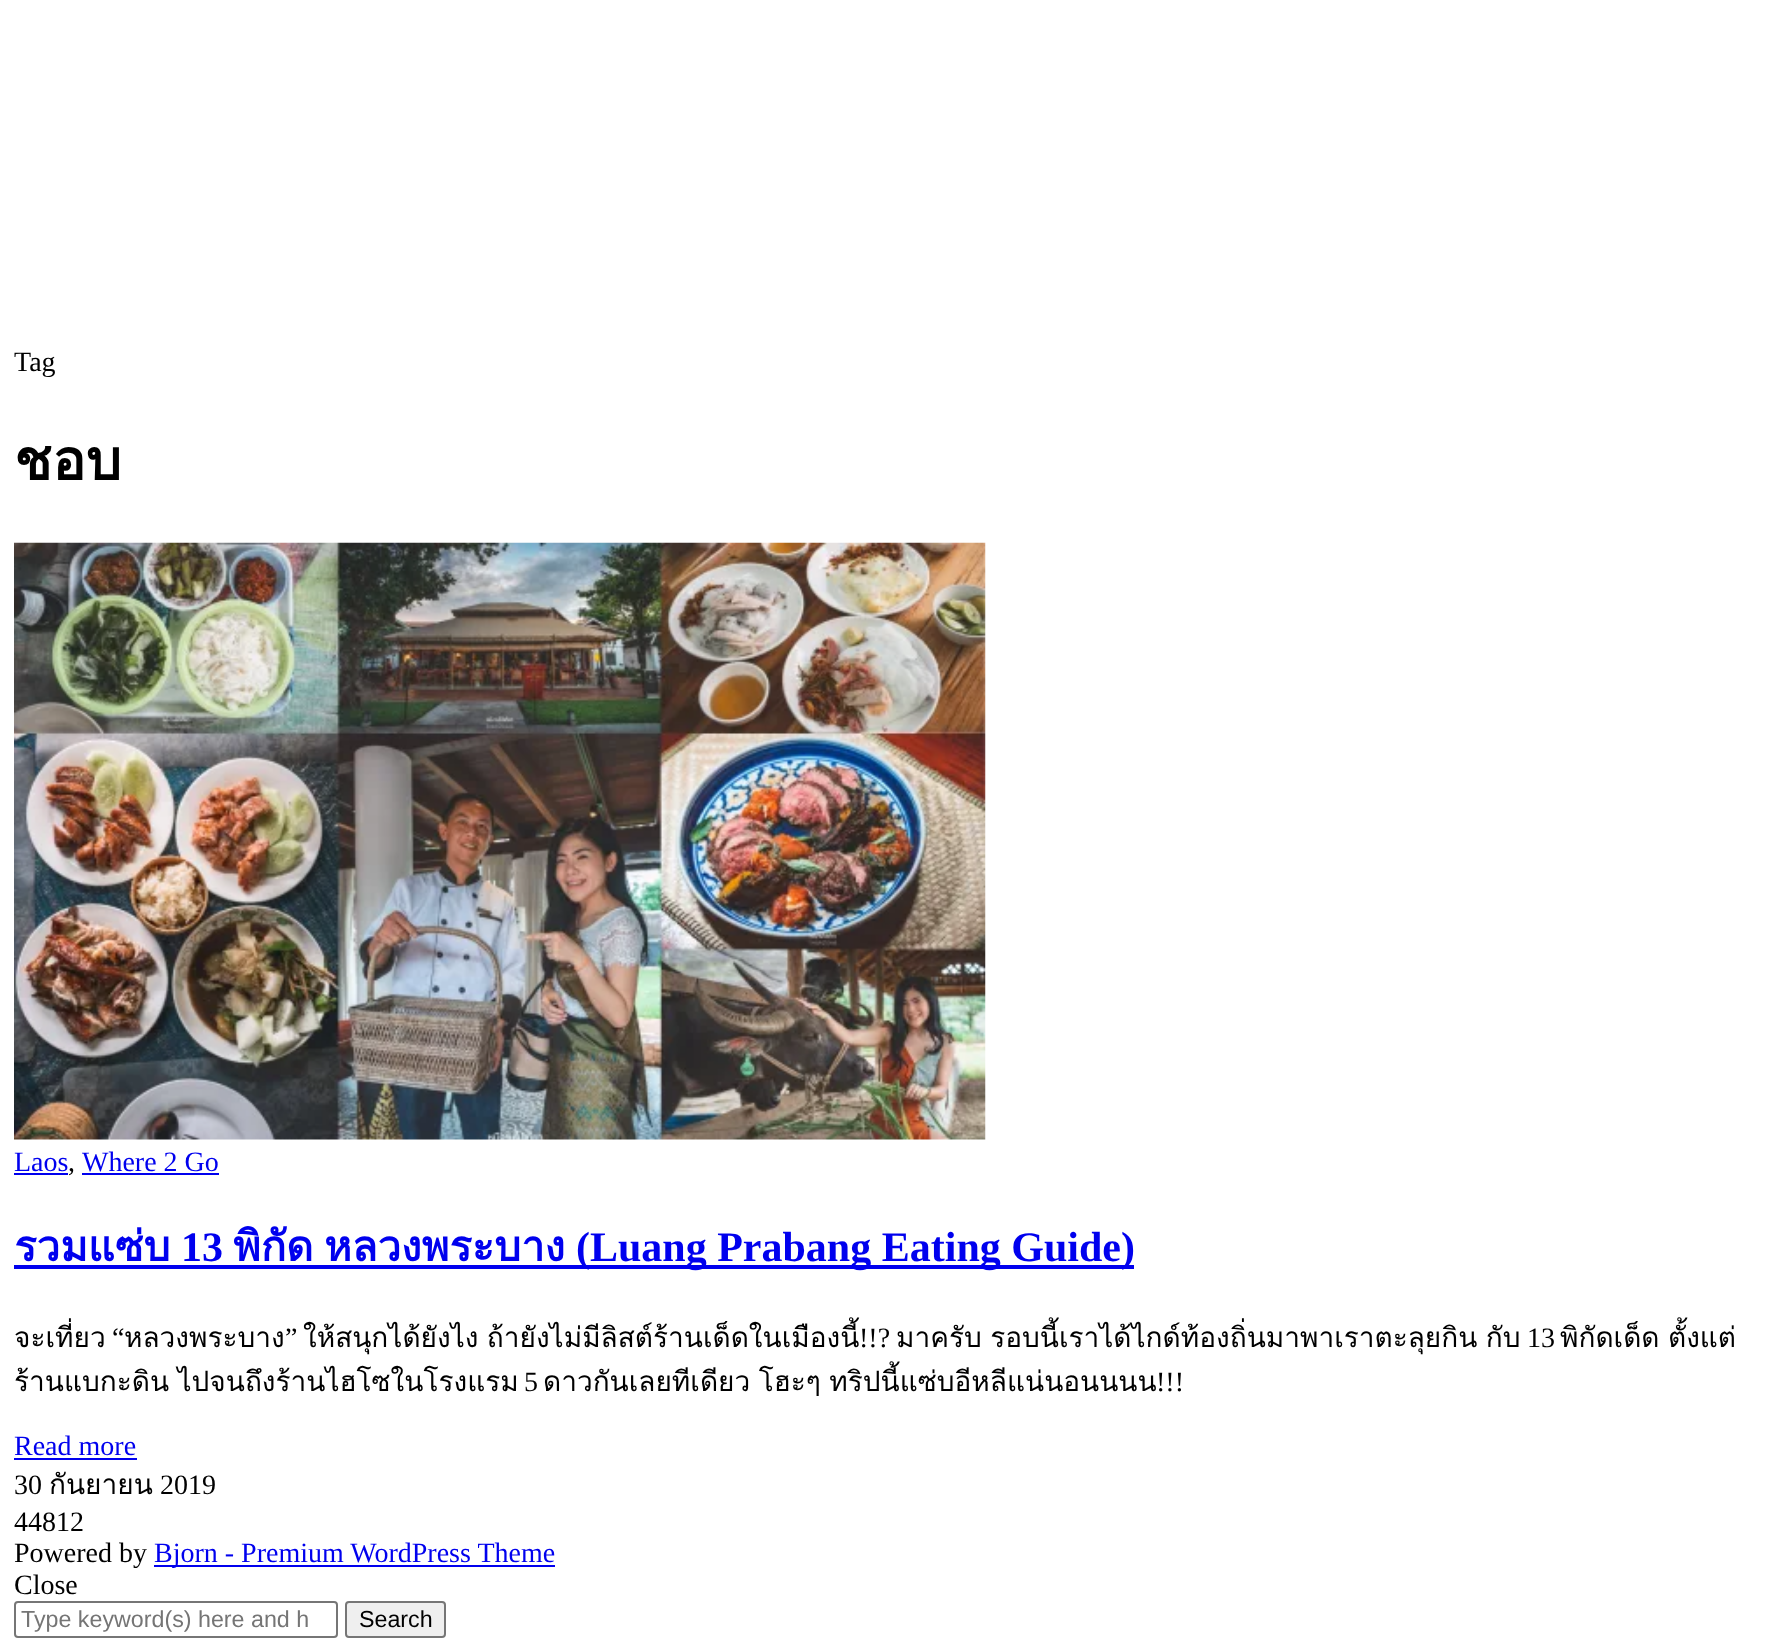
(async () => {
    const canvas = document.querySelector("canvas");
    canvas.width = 1767;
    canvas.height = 1652;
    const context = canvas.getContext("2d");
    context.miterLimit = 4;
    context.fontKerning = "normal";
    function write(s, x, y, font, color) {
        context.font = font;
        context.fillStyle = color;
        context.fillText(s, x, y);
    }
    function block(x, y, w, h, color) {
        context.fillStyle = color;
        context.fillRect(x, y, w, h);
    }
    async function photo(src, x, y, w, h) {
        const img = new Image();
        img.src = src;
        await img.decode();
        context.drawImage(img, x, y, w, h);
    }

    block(0, 0, 1767, 1652, "rgb(255, 255, 255)");
    write("Tag", 14, 371, "28px Liberation Serif", "rgb(0, 0, 0)");
    write("ชอบ", 14, 480, "bold 56px Loma", "rgb(0, 0, 0)");
    await photo("media/1.png", 14, 542, 972, 598);
    write("Laos", 14, 1171, "28px Liberation Serif", "rgb(0, 0, 238)");
    block(14, 1173, 54, 2, "rgb(0, 0, 238)");
    write(",", 68, 1171, "28px Liberation Serif", "rgb(0, 0, 0)");
    write("Where 2 Go", 82, 1171, "28px Liberation Serif", "rgb(0, 0, 238)");
    block(82, 1173, 137, 2, "rgb(0, 0, 238)");
    write("รวมแซ่บ", 14, 1261, "bold 42px Loma", "rgb(0, 0, 238)");
    write("13", 181, 1261, "bold 42px Liberation Serif", "rgb(0, 0, 238)");
    write("พิกัด", 233, 1261, "bold 42px Loma", "rgb(0, 0, 238)");
    write("หลวงพระบาง", 324, 1261, "bold 42px Loma", "rgb(0, 0, 238)");
    block(14, 1265, 1120, 4, "rgb(0, 0, 238)");
    write("(Luang Prabang Eating Guide)", 576, 1261, "bold 42px Liberation Serif", "rgb(0, 0, 238)");
    write("จะเที่ยว", 14, 1347, "28px Loma", "rgb(0, 0, 0)");
    write("“", 112, 1347, "28px Liberation Serif", "rgb(0, 0, 0)");
    write("หลวงพระบาง", 124, 1347, "28px Loma", "rgb(0, 0, 0)");
    write("”", 285, 1347, "28px Liberation Serif", "rgb(0, 0, 0)");
    context.wordSpacing = "-1px";
    write("ให้สนุกได้ยังไง ถ้ายังไม่มีลิสต์ร้านเด็ดในเมืองนี้", 303, 1347, "28px Loma", "rgb(0, 0, 0)");
    context.wordSpacing = "0px";
    write("!!?", 859, 1347, "28px Liberation Serif", "rgb(0, 0, 0)");
    context.wordSpacing = "-1px";
    write("มาครับ รอบนี้เราได้ไกด์ท้องถิ่นมาพาเราตะลุยกิน กับ", 896, 1347, "28px Loma", "rgb(0, 0, 0)");
    context.wordSpacing = "0px";
    write("13", 1527, 1347, "28px Liberation Serif", "rgb(0, 0, 0)");
    context.wordSpacing = "-1px";
    write("พิกัดเด็ด ตั้งแต่", 1560, 1347, "28px Loma", "rgb(0, 0, 0)");
    write("ร้านแบกะดิน ไปจนถึงร้านไฮโซในโรงแรม", 14, 1391, "28px Loma", "rgb(0, 0, 0)");
    context.wordSpacing = "0px";
    write("5", 524, 1391, "28px Liberation Serif", "rgb(0, 0, 0)");
    context.wordSpacing = "-1px";
    write("ดาวกันเลยทีเดียว โฮะๆ ทริปนี้แซ่บอีหลีแน่นอนนนน", 543, 1391, "28px Loma", "rgb(0, 0, 0)");
    context.wordSpacing = "0px";
    write("!!!", 1156, 1391, "28px Liberation Serif", "rgb(0, 0, 0)");
    write("Read more", 14, 1455, "28px Liberation Serif", "rgb(0, 0, 238)");
    block(14, 1458, 123, 2, "rgb(0, 0, 238)");
    write("30", 14, 1494, "28px Liberation Serif", "rgb(0, 0, 0)");
    write("กันยายน", 49, 1494, "28px Loma", "rgb(0, 0, 0)");
    write("2019", 160, 1494, "28px Liberation Serif", "rgb(0, 0, 0)");
    write("44812", 14, 1531, "28px Liberation Serif", "rgb(0, 0, 0)");
    write("Powered by", 14, 1562, "28px Liberation Serif", "rgb(0, 0, 0)");
    block(154, 1565, 401, 2, "rgb(0, 0, 238)");
    write("Bjorn - Premium WordPress Theme", 154, 1562, "28px Liberation Serif", "rgb(0, 0, 238)");
    write("Close", 14, 1594, "28px Liberation Serif", "rgb(0, 0, 0)");
    context.beginPath();
    context.roundRect(15, 1602, 322, 35, 3);
    context.strokeStyle = "rgb(118, 118, 118)";
    context.lineWidth = 2;
    context.stroke();
    context.save();
    context.beginPath();
    context.rect(21, 1607, 287, 26);
    context.clip();
    write("Type keyword(s) here and h", 21, 1627, "23.25px Liberation Sans", "rgb(117, 117, 117)");
    context.restore();
    context.fillStyle = "rgb(239, 239, 239)";
    context.beginPath();
    context.roundRect(346, 1602, 99, 35, 3);
    context.fill();
    context.stroke();
    write("Search", 359, 1627, "23.25px Liberation Sans", "rgb(0, 0, 0)");
})();
